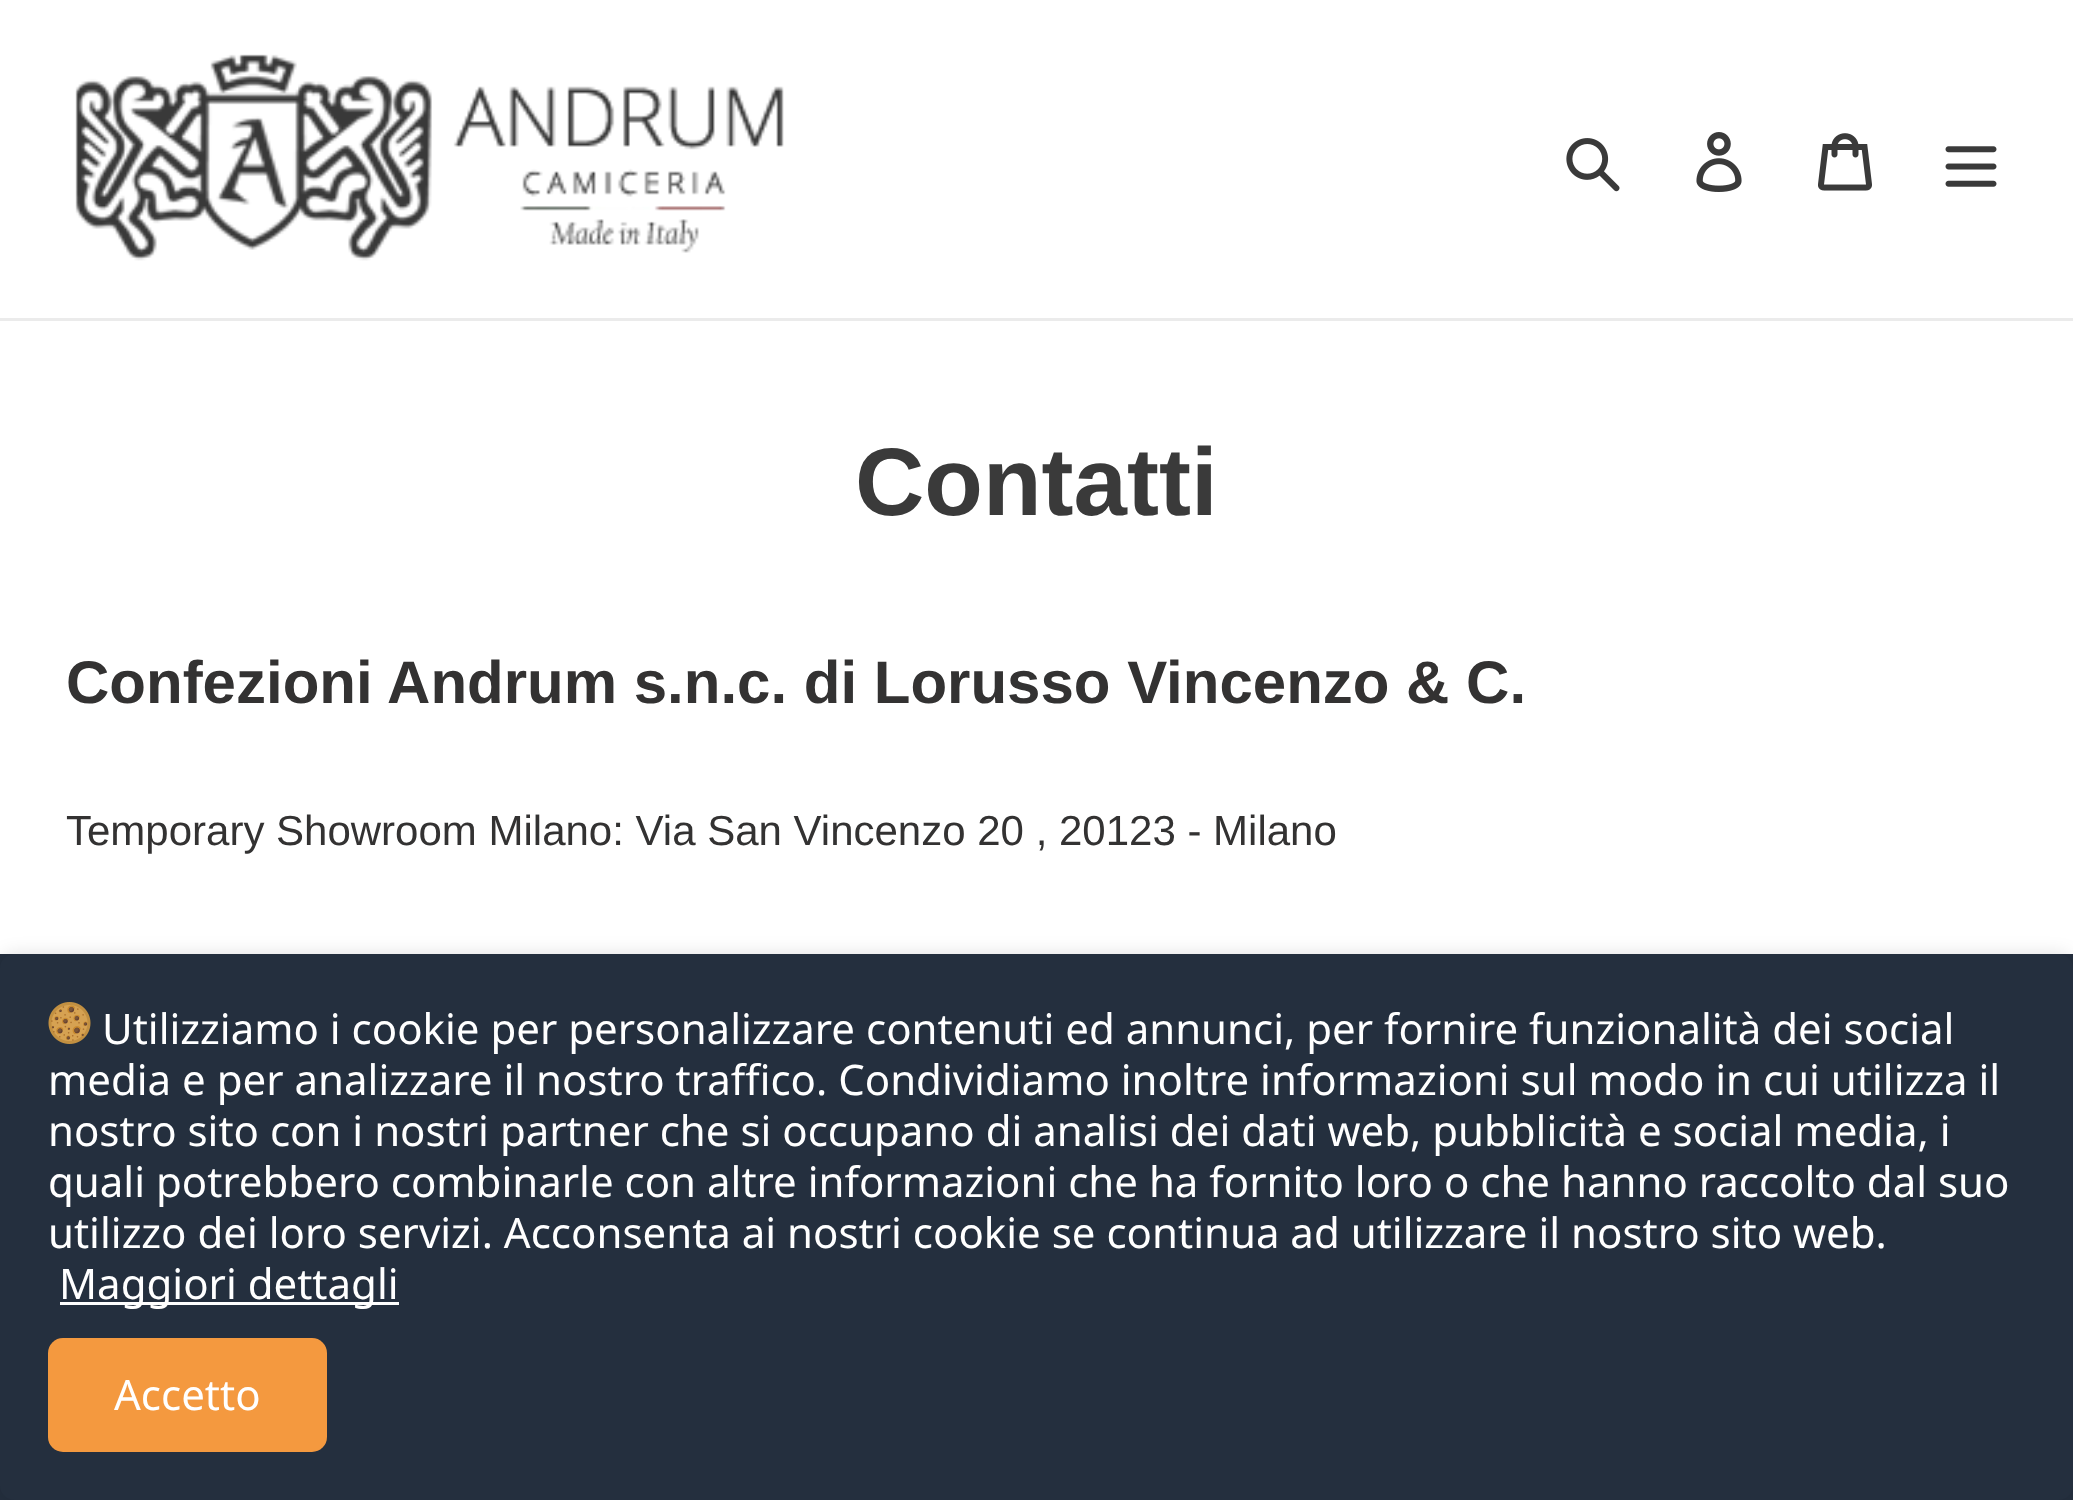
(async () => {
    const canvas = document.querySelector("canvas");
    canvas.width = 2073;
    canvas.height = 1500;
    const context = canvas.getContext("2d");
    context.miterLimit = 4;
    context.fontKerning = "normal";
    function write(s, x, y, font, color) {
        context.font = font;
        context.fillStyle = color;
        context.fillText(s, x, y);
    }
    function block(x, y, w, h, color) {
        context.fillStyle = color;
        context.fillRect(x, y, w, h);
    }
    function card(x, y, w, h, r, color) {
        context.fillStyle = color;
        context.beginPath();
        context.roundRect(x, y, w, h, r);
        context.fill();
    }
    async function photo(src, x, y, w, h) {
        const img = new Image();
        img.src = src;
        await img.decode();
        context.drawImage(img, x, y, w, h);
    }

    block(0, 0, 2073, 1500, "rgb(255, 255, 255)");
    block(0, 318, 2073, 3, "rgb(235, 235, 235)");
    await photo("media/1.png", 75, 54, 709, 207);
    await photo("media/2.png", 1566, 138, 54, 54);
    await photo("media/3.png", 1696, 132, 46, 60);
    await photo("media/4.png", 1818, 133, 54, 58);
    await photo("media/5.png", 1945, 146, 52, 41);
    write("Contatti", 855, 515, "bold 96px Liberation Sans", "rgb(58, 58, 58)");
    write("Confezioni Andrum s.n.c. di Lorusso Vincenzo & C.", 66, 703, "bold 60px Liberation Sans", "rgb(51, 50, 50)");
    write("Temporary Showroom Milano: Via San Vincenzo 20 , 20123 - Milano", 66, 845, "42px Liberation Sans", "rgb(51, 50, 50)");
    block(0, 954, 2073, 546, "rgb(36, 47, 62)");
    context.save();
    context.beginPath();
    context.moveTo(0, 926);
    context.lineTo(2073, 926);
    context.lineTo(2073, 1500);
    context.lineTo(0, 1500);
    context.closePath();
    context.moveTo(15, 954);
    context.lineTo(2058, 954);
    context.bezierCurveTo(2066.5, 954, 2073, 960.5, 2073, 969);
    context.lineTo(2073, 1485);
    context.bezierCurveTo(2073, 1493.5, 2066.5, 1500, 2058, 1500);
    context.lineTo(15, 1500);
    context.bezierCurveTo(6.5, 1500, 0, 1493.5, 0, 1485);
    context.lineTo(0, 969);
    context.bezierCurveTo(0, 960.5, 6.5, 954, 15, 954);
    context.closePath();
    context.clip("evenodd");
    context.fillStyle = "rgba(0, 0, 0, 0.12)";
    context.filter = "blur(9px)";
    context.beginPath();
    context.roundRect(0, 954, 2073, 546, 15);
    context.fill();
    context.filter = "none";
    context.restore();
    await photo("media/6.png", 48, 1002, 43, 42);
    write("Utilizziamo i cookie per personalizzare contenuti ed annunci, per fornire funzionalità dei social", 102, 1044, "42px Noto Sans", "rgb(255, 255, 255)");
    write("media e per analizzare il nostro traffico. Condividiamo inoltre informazioni sul modo in cui utilizza il", 48, 1095, "42px Noto Sans", "rgb(255, 255, 255)");
    write("nostro sito con i nostri partner che si occupano di analisi dei dati web, pubblicità e social media, i", 48, 1146, "42px Noto Sans", "rgb(255, 255, 255)");
    write("quali potrebbero combinarle con altre informazioni che ha fornito loro o che hanno raccolto dal suo", 48, 1197, "42px Noto Sans", "rgb(255, 255, 255)");
    write("utilizzo dei loro servizi. Acconsenta ai nostri cookie se continua ad utilizzare il nostro sito web.", 48, 1248, "42px Noto Sans", "rgb(255, 255, 255)");
    block(60, 1302, 339, 3, "rgb(255, 255, 255)");
    write("Maggiori dettagli", 59, 1299, "42px Noto Sans", "rgb(255, 255, 255)");
    card(48, 1338, 279, 114, 15, "rgb(244, 153, 63)");
    write("Accetto", 114, 1410, "42px Noto Sans", "rgb(255, 255, 255)");
})();
